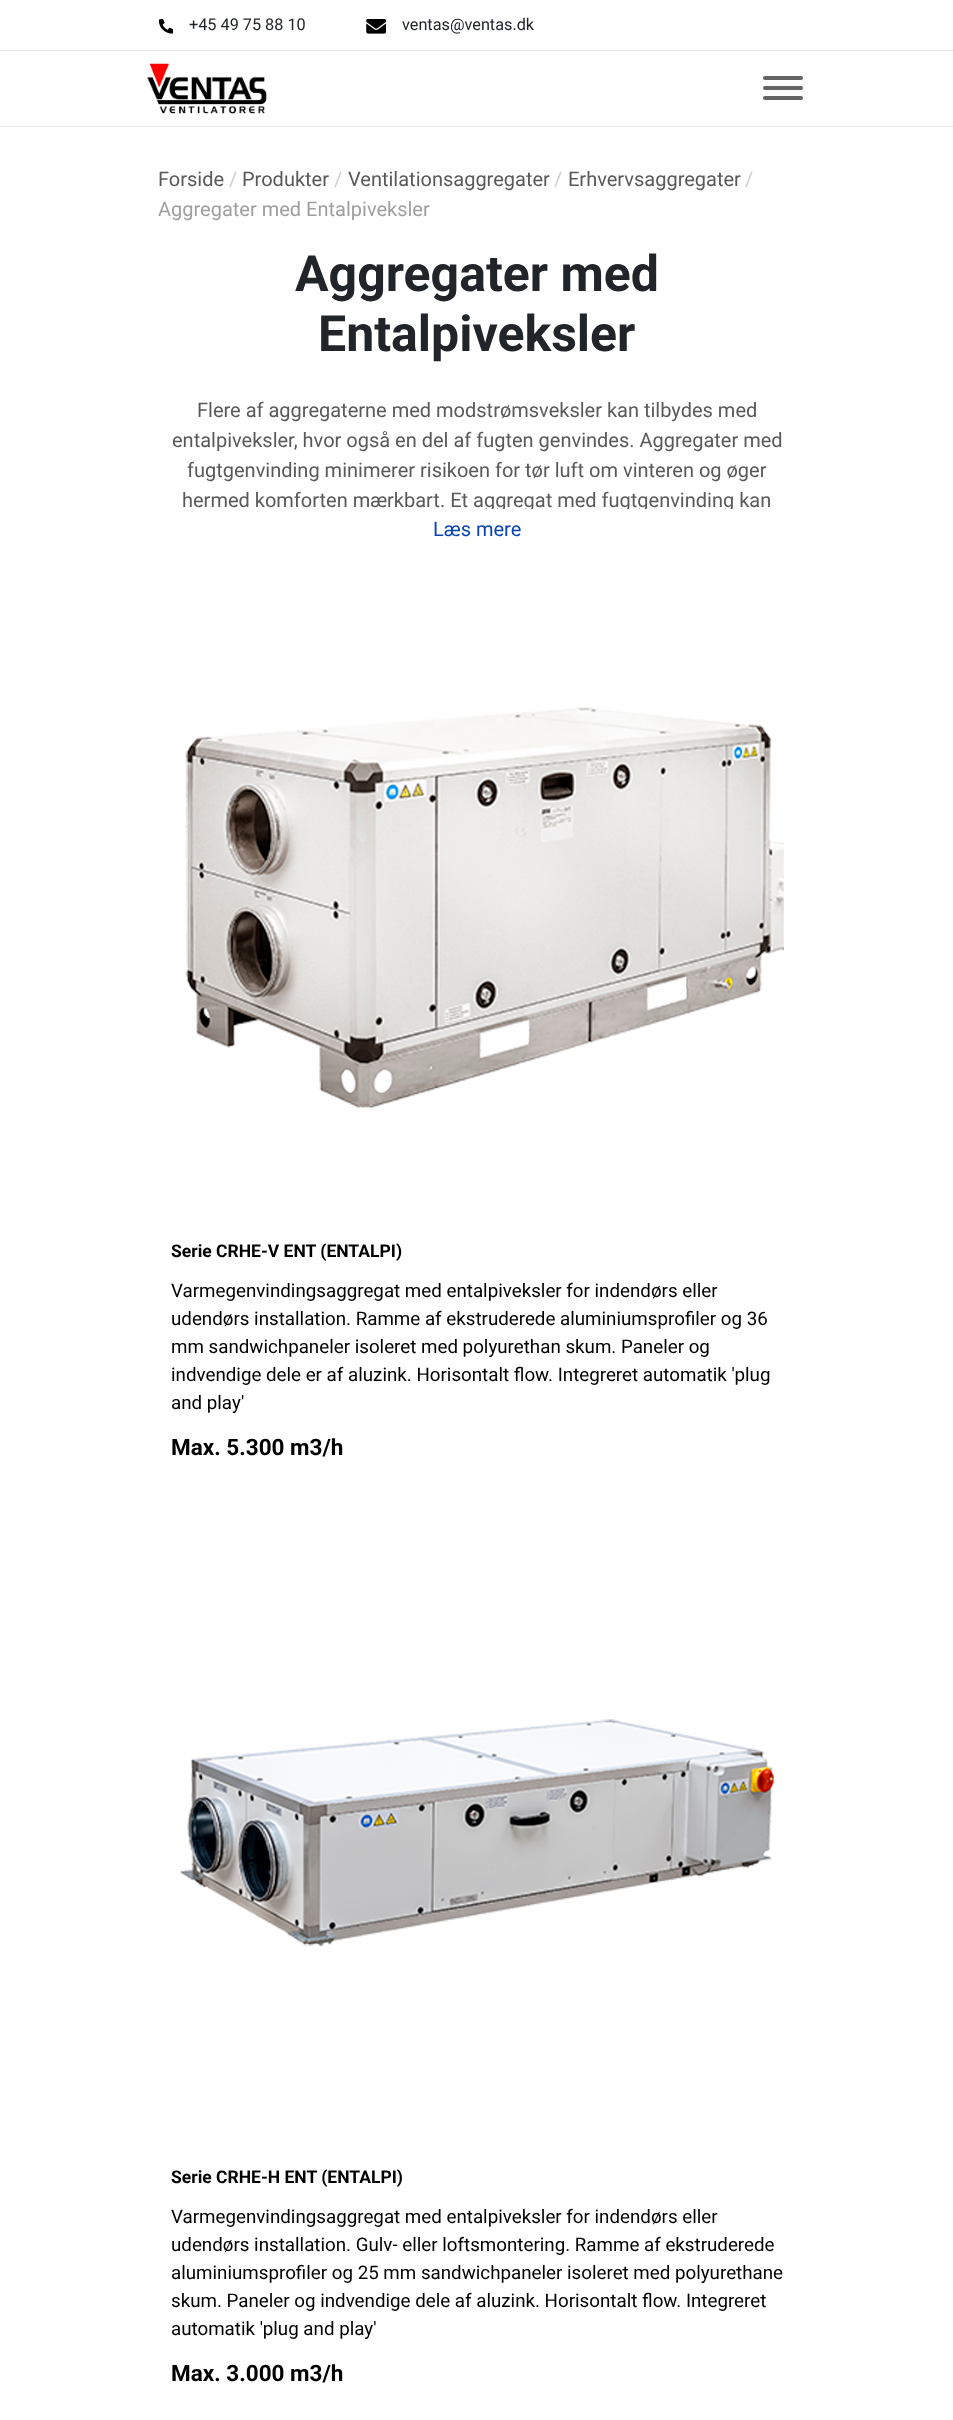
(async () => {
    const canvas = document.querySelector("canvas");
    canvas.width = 953;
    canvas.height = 2420;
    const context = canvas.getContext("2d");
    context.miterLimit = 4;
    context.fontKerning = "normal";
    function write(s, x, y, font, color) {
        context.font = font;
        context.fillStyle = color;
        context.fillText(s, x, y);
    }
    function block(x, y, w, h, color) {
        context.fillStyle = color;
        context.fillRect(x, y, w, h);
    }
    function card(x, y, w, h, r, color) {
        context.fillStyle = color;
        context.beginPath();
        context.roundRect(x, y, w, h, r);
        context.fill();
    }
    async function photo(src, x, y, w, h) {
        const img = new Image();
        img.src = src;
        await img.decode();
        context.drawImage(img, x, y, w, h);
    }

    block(0, 0, 953, 2420, "rgb(255, 255, 255)");
    block(0, 50, 953, 1, "rgb(235, 235, 235)");
    await photo("media/1.png", 159, 19, 14, 15);
    write("+45 49 75 88 10", 189, 30, "16.25px Roboto", "rgb(33, 37, 41)");
    await photo("media/2.png", 366, 19, 20, 15);
    write("ventas@ventas.dk", 402, 30, "16.25px Roboto", "rgb(33, 37, 41)");
    block(0, 126, 953, 1, "rgb(235, 235, 235)");
    await photo("media/3.png", 147, 63, 120, 51);
    card(763, 76, 40, 4, 2, "rgb(100, 100, 100)");
    card(763, 86, 40, 4, 2, "rgb(100, 100, 100)");
    card(763, 96, 40, 4, 2, "rgb(100, 100, 100)");
    write("Forside", 158, 186, "20px Roboto", "rgb(89, 89, 89)");
    write("/", 229, 186, "20px Roboto", "rgb(206, 206, 206)");
    write("Produkter", 242, 186, "20px Roboto", "rgb(89, 89, 89)");
    write("/", 334, 186, "20px Roboto", "rgb(206, 206, 206)");
    write("Ventilationsaggregater", 348, 186, "20px Roboto", "rgb(89, 89, 89)");
    write("/", 554, 186, "20px Roboto", "rgb(206, 206, 206)");
    write("Erhvervsaggregater", 568, 186, "20px Roboto", "rgb(89, 89, 89)");
    write("/", 745, 186, "20px Roboto", "rgb(206, 206, 206)");
    write("Aggregater med Entalpiveksler", 158, 216, "20px Roboto", "rgb(160, 159, 159)");
    write("Aggregater med", 295, 291, "bold 50px Roboto", "rgb(33, 37, 41)");
    write("Entalpiveksler", 318, 351, "bold 50px Roboto", "rgb(33, 37, 41)");
    write("Flere af aggregaterne med modstrømsveksler kan tilbydes med", 197, 417, "20px Roboto", "rgb(89, 89, 89)");
    write("entalpiveksler, hvor også en del af fugten genvindes. Aggregater med", 172, 447, "20px Roboto", "rgb(89, 89, 89)");
    write("fugtgenvinding minimerer risikoen for tør luft om vinteren og øger", 187, 477, "20px Roboto", "rgb(89, 89, 89)");
    context.save();
    context.beginPath();
    context.rect(171, 396, 613, 113);
    context.clip();
    write("hermed komforten mærkbart. Et aggregat med fugtgenvinding kan", 182, 507, "20px Roboto", "rgb(89, 89, 89)");
    context.restore();
    write("Læs mere", 433, 536, "20px Roboto", "rgb(10, 69, 180)");
    await photo("media/4.png", 185, 707, 599, 401);
    write("Serie CRHE-V ENT (ENTALPI)", 171, 1257, "bold 17.5px Roboto", "rgb(0, 0, 0)");
    write("Varmegenvindingsaggregat med entalpiveksler for indendørs eller", 171, 1297, "18.75px Roboto", "rgb(0, 0, 0)");
    write("udendørs installation. Ramme af ekstruderede aluminiumsprofiler og 36", 171, 1325, "18.75px Roboto", "rgb(0, 0, 0)");
    write("mm sandwichpaneler isoleret med polyurethan skum. Paneler og", 171, 1353, "18.75px Roboto", "rgb(0, 0, 0)");
    write("indvendige dele er af aluzink. Horisontalt flow. Integreret automatik 'plug", 171, 1381, "18.75px Roboto", "rgb(0, 0, 0)");
    write("and play'", 171, 1409, "18.75px Roboto", "rgb(0, 0, 0)");
    write("Max. 5.300 m3/h", 171, 1455, "bold 22.5px Roboto", "rgb(0, 0, 0)");
    await photo("media/5.png", 180, 1719, 594, 227);
    write("Serie CRHE-H ENT (ENTALPI)", 171, 2183, "bold 17.5px Roboto", "rgb(0, 0, 0)");
    write("Varmegenvindingsaggregat med entalpiveksler for indendørs eller", 171, 2223, "18.75px Roboto", "rgb(0, 0, 0)");
    write("udendørs installation. Gulv- eller loftsmontering. Ramme af ekstruderede", 171, 2251, "18.75px Roboto", "rgb(0, 0, 0)");
    write("aluminiumsprofiler og 25 mm sandwichpaneler isoleret med polyurethane", 171, 2279, "18.75px Roboto", "rgb(0, 0, 0)");
    write("skum. Paneler og indvendige dele af aluzink. Horisontalt flow. Integreret", 171, 2307, "18.75px Roboto", "rgb(0, 0, 0)");
    write("automatik 'plug and play'", 171, 2335, "18.75px Roboto", "rgb(0, 0, 0)");
    write("Max. 3.000 m3/h", 171, 2381, "bold 22.5px Roboto", "rgb(0, 0, 0)");
})();
